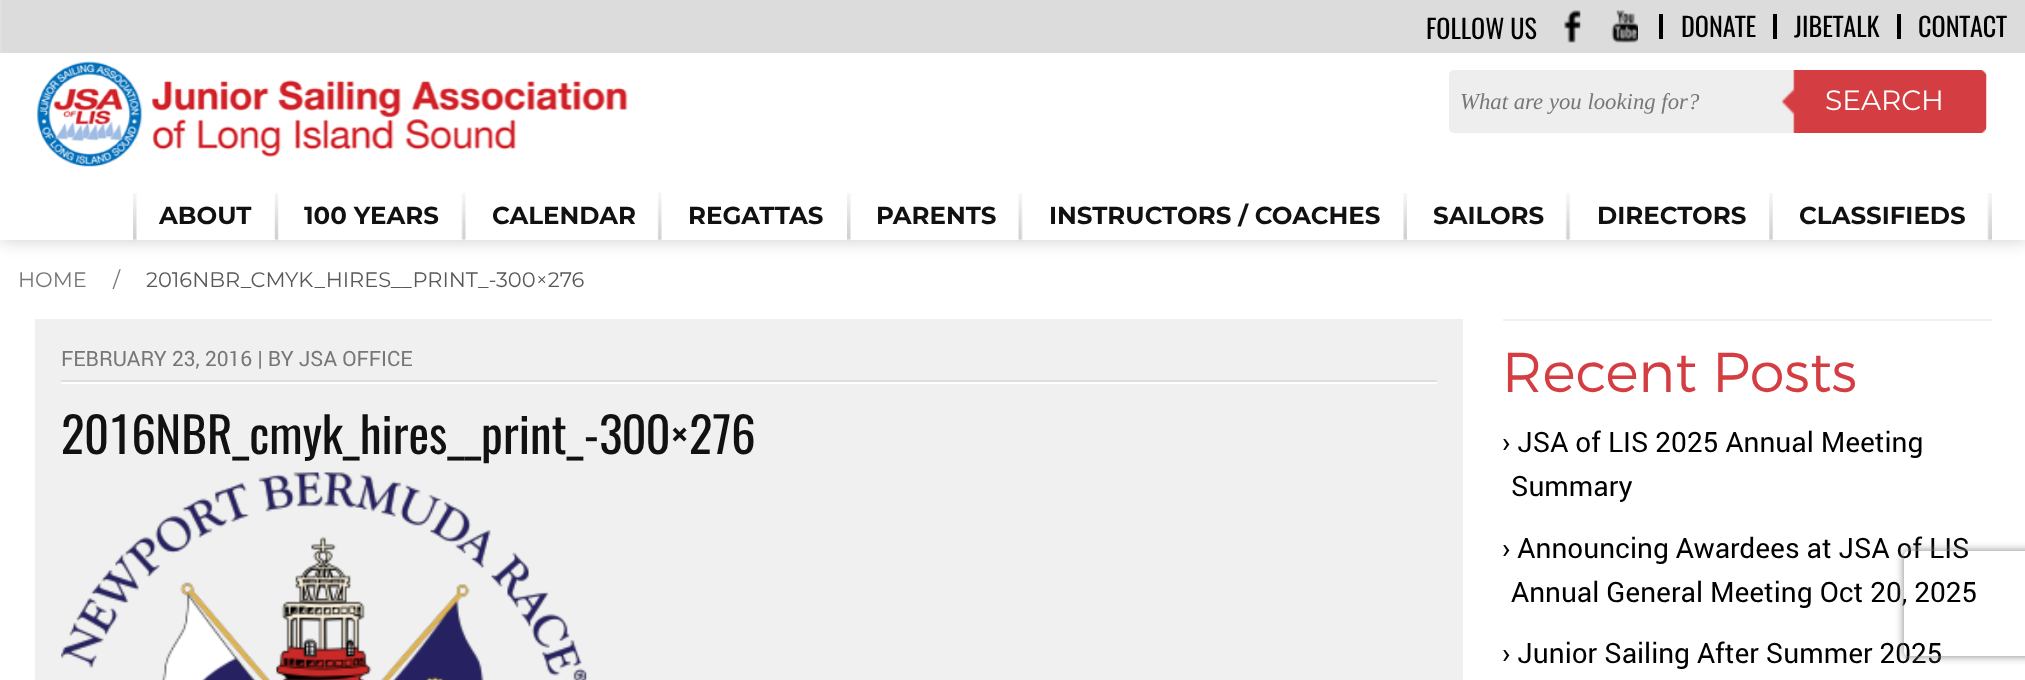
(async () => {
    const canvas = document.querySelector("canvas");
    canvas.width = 2025;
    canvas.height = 680;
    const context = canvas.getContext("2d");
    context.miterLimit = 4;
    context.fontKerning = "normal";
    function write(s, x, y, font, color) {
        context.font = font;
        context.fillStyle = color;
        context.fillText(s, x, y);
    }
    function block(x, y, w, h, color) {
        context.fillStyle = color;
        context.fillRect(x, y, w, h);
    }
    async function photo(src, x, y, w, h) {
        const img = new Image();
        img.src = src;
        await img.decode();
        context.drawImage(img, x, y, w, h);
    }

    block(0, 0, 2025, 680, "rgb(255, 255, 255)");
    context.fillStyle = "rgba(0, 0, 0, 0.2)";
    context.filter = "blur(9px)";
    context.beginPath();
    context.rect(0, 0, 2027, 240);
    context.fill();
    context.filter = "none";
    block(0, 53, 2025, 187, "rgb(255, 255, 255)");
    block(2, 0, 2023, 53, "rgb(220, 220, 220)");
    block(0, 0, 2, 53, "rgb(224, 224, 224)");
    write("FOLLOW US", 1426, 39, "26.25px Oswald", "rgb(0, 0, 0)");
    await photo("media/1.png", 1564, 10, 17, 33);
    await photo("media/2.png", 1611, 10, 27, 33);
    block(1659, 14, 4, 25, "rgb(0, 0, 0)");
    write("DONATE", 1681, 37, "26.25px Oswald", "rgb(0, 0, 0)");
    block(1773, 14, 4, 25, "rgb(0, 0, 0)");
    write("JIBETALK", 1794, 37, "26.25px Oswald", "rgb(0, 0, 0)");
    block(1897, 14, 4, 25, "rgb(0, 0, 0)");
    write("CONTACT", 1918, 37, "26.25px Oswald", "rgb(0, 0, 0)");
    await photo("media/3.png", 36, 61, 592, 106);
    context.fillStyle = "rgb(238, 238, 238)";
    context.beginPath();
    context.roundRect(1449, 70, 347, 63, [5, 0, 0, 5]);
    context.fill();
    write("What are you looking for?", 1460, 109, "italic 22.75px Liberation Serif", "rgb(119, 119, 119)");
    await photo("media/4.png", 1781, 70, 206, 63);
    write("SEARCH", 1825, 110, "28px Montserrat", "rgb(255, 255, 255)");
    await photo("media/5.png", 133, 193, 146, 48);
    write("ABOUT", 159, 224, "bold 24.5px Montserrat", "rgb(17, 17, 17)");
    await photo("media/6.png", 461, 193, 5, 48);
    write("100 YEARS", 304, 224, "bold 24.5px Montserrat", "rgb(17, 17, 17)");
    await photo("media/7.png", 657, 192, 5, 48);
    write("CALENDAR", 492, 224, "bold 24.5px Montserrat", "rgb(17, 17, 17)");
    await photo("media/8.png", 847, 193, 4, 48);
    write("REGATTAS", 688, 224, "bold 24.5px Montserrat", "rgb(17, 17, 17)");
    await photo("media/9.png", 1018, 193, 5, 48);
    write("PARENTS", 876, 224, "bold 24.5px Montserrat", "rgb(17, 17, 17)");
    await photo("media/10.png", 1403, 193, 4, 48);
    write("INSTRUCTORS / COACHES", 1049, 224, "bold 24.5px Montserrat", "rgb(17, 17, 17)");
    await photo("media/11.png", 1565, 193, 6, 48);
    write("SAILORS", 1433, 224, "bold 24.5px Montserrat", "rgb(17, 17, 17)");
    await photo("media/12.png", 1769, 193, 4, 48);
    write("DIRECTORS", 1597, 224, "bold 24.5px Montserrat", "rgb(17, 17, 17)");
    await photo("media/13.png", 1987, 193, 5, 48);
    write("CLASSIFIEDS", 1799, 224, "bold 24.5px Montserrat", "rgb(17, 17, 17)");
    write("HOME", 18, 287, "21px Montserrat", "rgb(119, 119, 119)");
    write("/", 113, 287, "21px Montserrat", "rgb(119, 119, 119)");
    write("2016NBR_CMYK_HIRES__PRINT_-300×276", 146, 287, "21px Montserrat", "rgb(89, 89, 89)");
    block(35, 319, 1428, 361, "rgb(240, 240, 240)");
    block(61, 382, 1376, 2, "rgb(255, 255, 255)");
    block(61, 380, 1376, 2, "rgb(222, 222, 222)");
    write("FEBRUARY 23, 2016 | BY JSA OFFICE", 61, 366, "21px Roboto", "rgb(119, 119, 119)");
    write("2016NBR_cmyk_hires__print_-300×276", 61, 454, "49px Oswald", "rgb(17, 17, 17)");
    await photo("media/14.png", 61, 472, 526, 208);
    block(1503, 319, 489, 2, "rgb(240, 240, 240)");
    write("Recent Posts", 1502, 392, "300 56px Montserrat", "rgb(212, 61, 66)");
    write("› JSA of LIS 2025 Annual Meeting", 1502, 452, "28px Roboto", "rgb(0, 0, 0)");
    write("Summary", 1511, 496, "28px Roboto", "rgb(0, 0, 0)");
    write("› Announcing Awardees at JSA of LIS", 1502, 558, "28px Roboto", "rgb(0, 0, 0)");
    write("Annual General Meeting Oct 20, 2025", 1511, 602, "28px Roboto", "rgb(0, 0, 0)");
    write("› Junior Sailing After Summer 2025", 1502, 663, "28px Roboto", "rgb(0, 0, 0)");
    context.save();
    context.beginPath();
    context.moveTo(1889, 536);
    context.lineTo(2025, 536);
    context.lineTo(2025, 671);
    context.lineTo(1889, 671);
    context.closePath();
    context.moveTo(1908, 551);
    context.lineTo(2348, 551);
    context.bezierCurveTo(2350, 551, 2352, 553, 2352, 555);
    context.lineTo(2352, 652);
    context.bezierCurveTo(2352, 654, 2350, 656, 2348, 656);
    context.lineTo(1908, 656);
    context.bezierCurveTo(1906, 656, 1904, 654, 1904, 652);
    context.lineTo(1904, 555);
    context.bezierCurveTo(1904, 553, 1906, 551, 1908, 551);
    context.closePath();
    context.clip("evenodd");
    context.fillStyle = "rgb(128, 128, 128)";
    context.filter = "blur(4.5px)";
    context.beginPath();
    context.roundRect(1904, 551, 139, 105, 4);
    context.fill();
    context.filter = "none";
    context.restore();
})();
